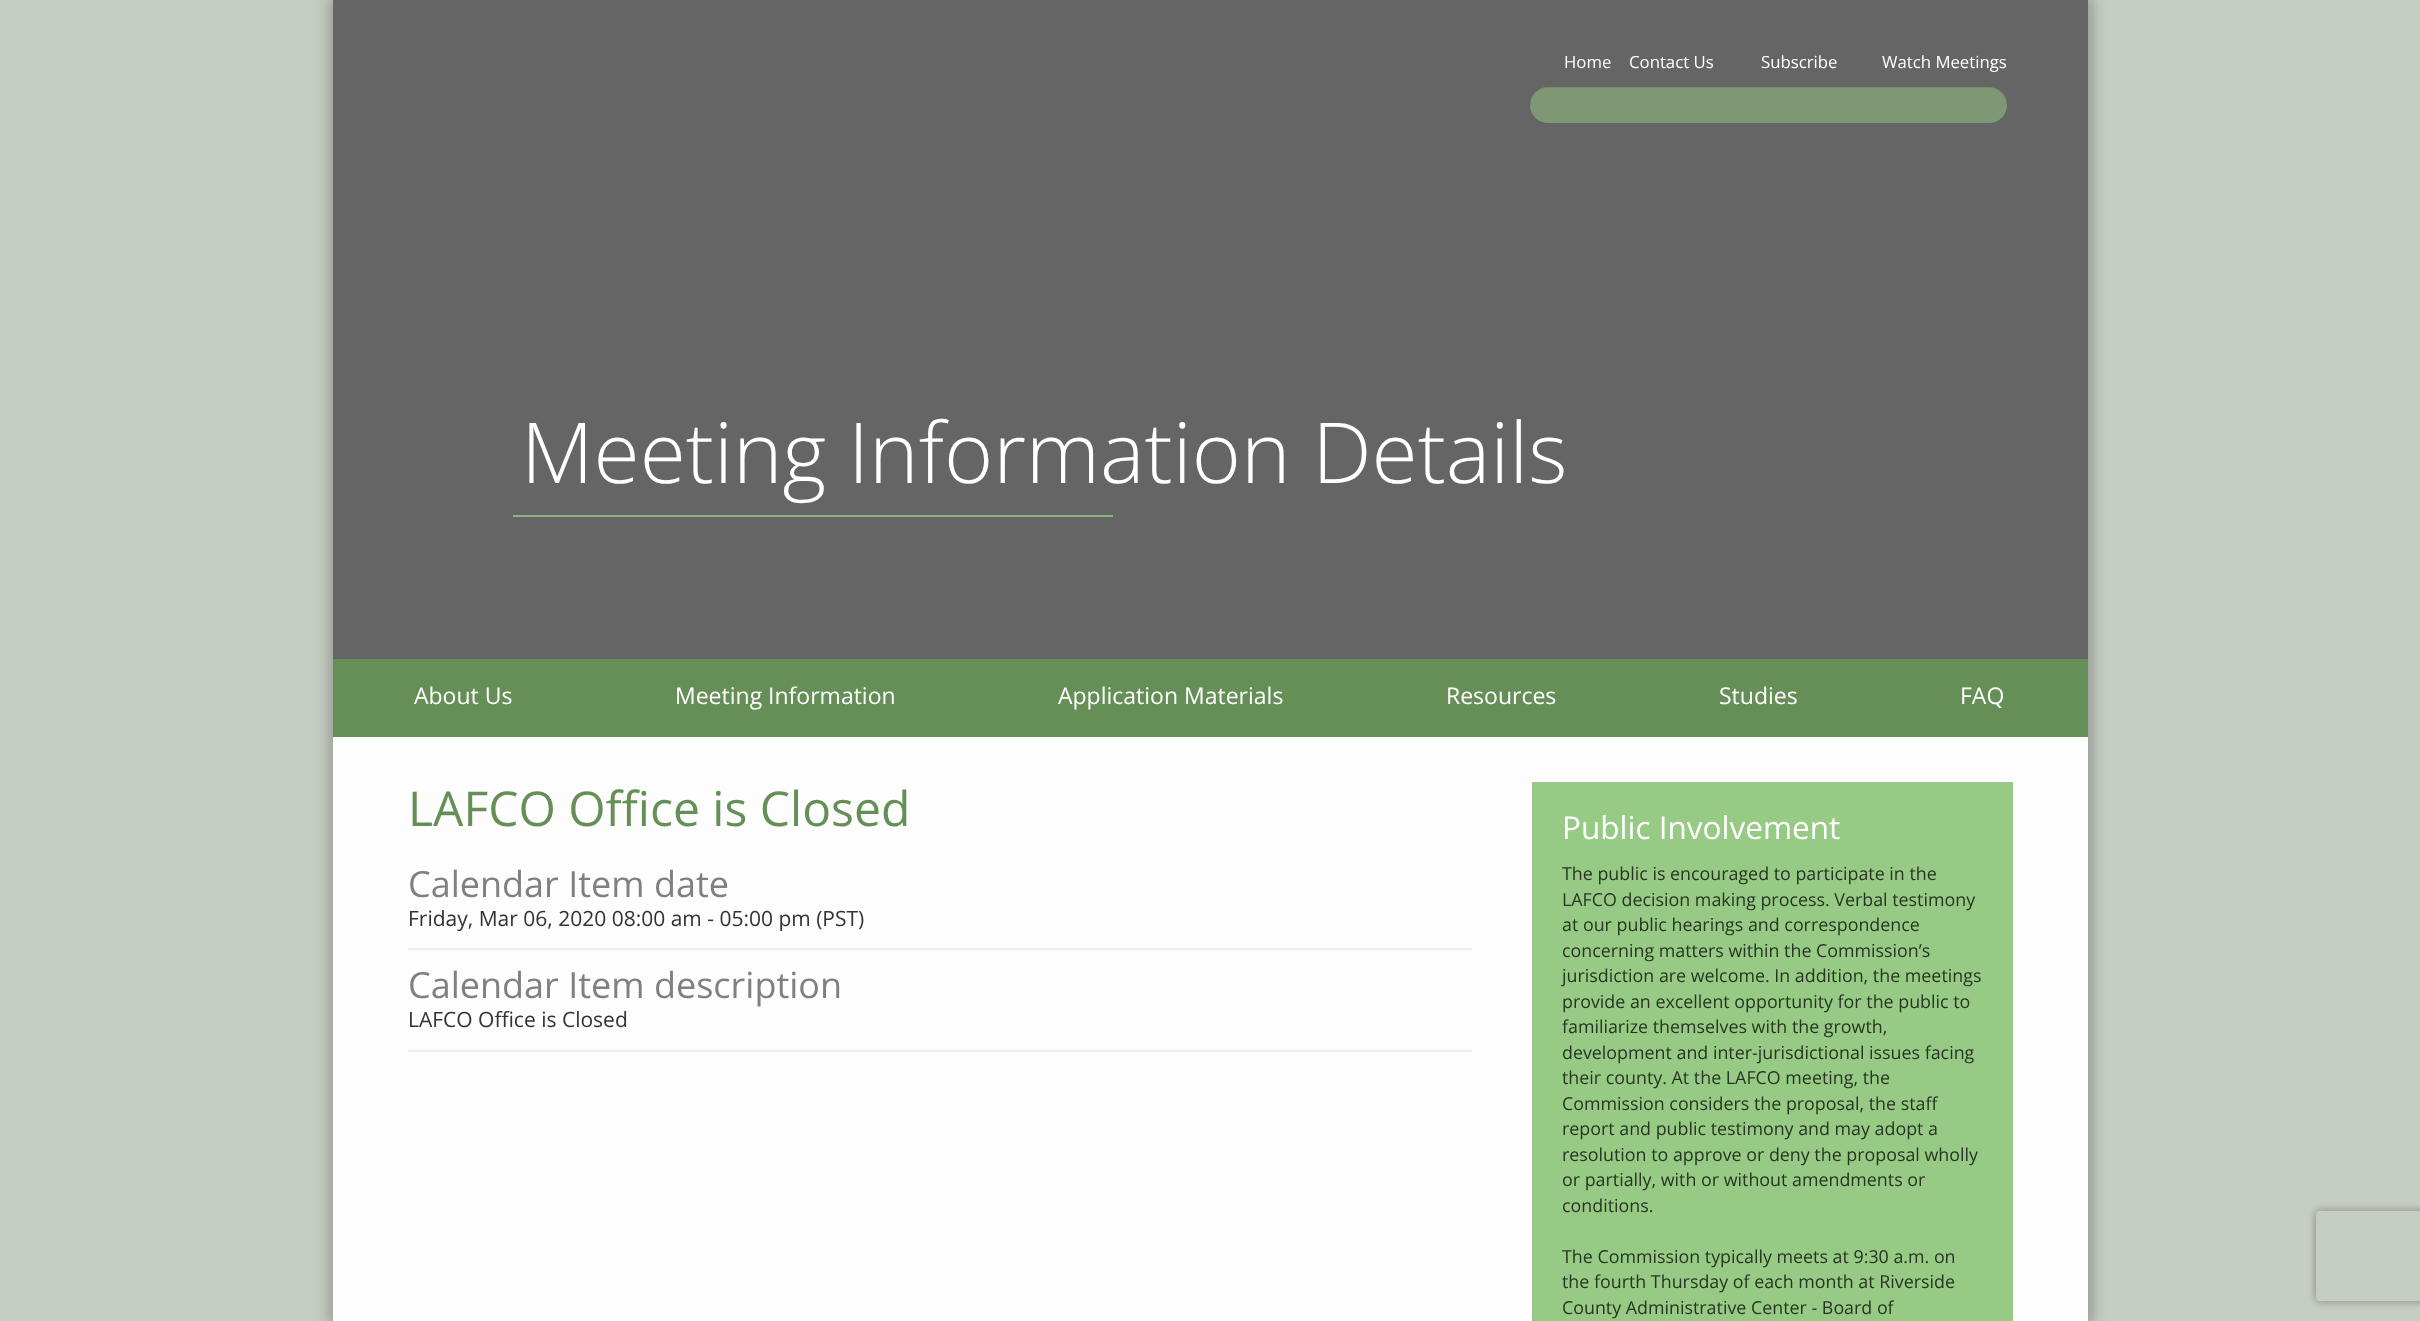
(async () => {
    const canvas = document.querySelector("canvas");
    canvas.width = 2420;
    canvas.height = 1321;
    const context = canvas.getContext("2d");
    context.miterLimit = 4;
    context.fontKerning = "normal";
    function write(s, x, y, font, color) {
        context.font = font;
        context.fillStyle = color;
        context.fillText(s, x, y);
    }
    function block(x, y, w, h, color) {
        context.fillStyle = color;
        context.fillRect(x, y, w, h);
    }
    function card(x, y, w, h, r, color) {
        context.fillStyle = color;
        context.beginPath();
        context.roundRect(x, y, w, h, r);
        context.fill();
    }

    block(0, 0, 2420, 1321, "rgb(198, 206, 195)");
    context.fillStyle = "rgba(102, 102, 102, 0.5)";
    context.filter = "blur(7.5px)";
    context.beginPath();
    context.rect(329, -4, 1764, 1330);
    context.fill();
    context.filter = "none";
    block(333, 0, 1755, 659, "rgb(101, 101, 101)");
    write("Home", 1564, 68, "16.75px Open Sans", "rgb(255, 255, 255)");
    write("Contact Us", 1629, 68, "16.75px Open Sans", "rgb(255, 255, 255)");
    write("Subscribe", 1761, 68, "16.75px Open Sans", "rgb(255, 255, 255)");
    write("Watch Meetings", 1882, 68, "16.75px Open Sans", "rgb(255, 255, 255)");
    card(1530, 87, 477, 36, 18, "rgb(126, 152, 117)");
    context.fillStyle = "rgba(0, 0, 0, 0.07)";
    context.beginPath();
    context.moveTo(1548, 88);
    context.lineTo(1989, 88);
    context.bezierCurveTo(1999, 88, 2007, 97, 2007, 106);
    context.bezierCurveTo(2007, 97, 2001, 89, 1993, 87);
    context.lineTo(1548, 87);
    context.bezierCurveTo(1538, 87, 1530, 95, 1530, 106);
    context.bezierCurveTo(1530, 97, 1538, 88, 1548, 88);
    context.closePath();
    context.fill();
    write("Meeting Information Details", 521, 483, "300 84px Open Sans", "rgb(255, 255, 255)");
    block(513, 515, 600, 2, "rgb(137, 182, 120)");
    block(333, 659, 1755, 78, "rgb(102, 143, 87)");
    write("About Us", 414, 704, "23px Open Sans", "rgb(255, 255, 255)");
    write("Meeting Information", 675, 704, "23px Open Sans", "rgb(255, 255, 255)");
    write("Application Materials", 1058, 704, "23px Open Sans", "rgb(255, 255, 255)");
    write("Resources", 1446, 704, "23px Open Sans", "rgb(255, 255, 255)");
    write("Studies", 1719, 704, "23px Open Sans", "rgb(255, 255, 255)");
    write("FAQ", 1960, 704, "23px Open Sans", "rgb(255, 255, 255)");
    block(333, 737, 1755, 584, "rgb(253, 253, 253)");
    write("LAFCO Office is Closed", 408, 826, "48px Open Sans", "rgb(102, 143, 87)");
    block(408, 948, 1064, 2, "rgb(238, 238, 238)");
    write("Calendar Item date", 408, 897, "36px Open Sans", "rgb(128, 128, 128)");
    write("Friday, Mar 06, 2020 08:00 am - 05:00 pm (PST)", 408, 926, "21px Open Sans", "rgb(51, 51, 51)");
    block(408, 1050, 1064, 2, "rgb(238, 238, 238)");
    write("Calendar Item description", 408, 998, "36px Open Sans", "rgb(128, 128, 128)");
    write("LAFCO Office is Closed", 408, 1027, "21px Open Sans", "rgb(51, 51, 51)");
    block(1532, 782, 481, 539, "rgb(151, 203, 133)");
    write("Public Involvement", 1562, 839, "31.5px Open Sans", "rgb(255, 255, 255)");
    write("The public is encouraged to participate in the", 1562, 880, "17.85px Open Sans", "rgb(39, 52, 34)");
    write("LAFCO decision making process. Verbal testimony", 1562, 906, "17.85px Open Sans", "rgb(39, 52, 34)");
    write("at our public hearings and correspondence", 1562, 931, "17.85px Open Sans", "rgb(39, 52, 34)");
    write("concerning matters within the Commission’s", 1562, 957, "17.85px Open Sans", "rgb(39, 52, 34)");
    write("jurisdiction are welcome. In addition, the meetings", 1562, 982, "17.85px Open Sans", "rgb(39, 52, 34)");
    write("provide an excellent opportunity for the public to", 1562, 1008, "17.85px Open Sans", "rgb(39, 52, 34)");
    write("familiarize themselves with the growth,", 1562, 1033, "17.85px Open Sans", "rgb(39, 52, 34)");
    write("development and inter-jurisdictional issues facing", 1562, 1059, "17.85px Open Sans", "rgb(39, 52, 34)");
    write("their county. At the LAFCO meeting, the", 1562, 1084, "17.85px Open Sans", "rgb(39, 52, 34)");
    write("Commission considers the proposal, the staff", 1562, 1110, "17.85px Open Sans", "rgb(39, 52, 34)");
    write("report and public testimony and may adopt a", 1562, 1135, "17.85px Open Sans", "rgb(39, 52, 34)");
    write("resolution to approve or deny the proposal wholly", 1562, 1161, "17.85px Open Sans", "rgb(39, 52, 34)");
    write("or partially, with or without amendments or", 1562, 1186, "17.85px Open Sans", "rgb(39, 52, 34)");
    write("conditions.", 1562, 1212, "17.85px Open Sans", "rgb(39, 52, 34)");
    write("The Commission typically meets at 9:30 a.m. on", 1562, 1263, "17.85px Open Sans", "rgb(39, 52, 34)");
    write("the fourth Thursday of each month at Riverside", 1562, 1288, "17.85px Open Sans", "rgb(39, 52, 34)");
    write("County Administrative Center - Board of", 1562, 1314, "17.85px Open Sans", "rgb(39, 52, 34)");
    context.save();
    context.beginPath();
    context.moveTo(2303, 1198);
    context.lineTo(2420, 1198);
    context.lineTo(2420, 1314);
    context.lineTo(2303, 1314);
    context.closePath();
    context.moveTo(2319, 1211);
    context.lineTo(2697, 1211);
    context.bezierCurveTo(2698.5, 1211, 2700, 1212.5, 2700, 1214);
    context.lineTo(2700, 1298);
    context.bezierCurveTo(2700, 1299.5, 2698.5, 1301, 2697, 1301);
    context.lineTo(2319, 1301);
    context.bezierCurveTo(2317.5, 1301, 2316, 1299.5, 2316, 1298);
    context.lineTo(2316, 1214);
    context.bezierCurveTo(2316, 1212.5, 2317.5, 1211, 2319, 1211);
    context.closePath();
    context.clip("evenodd");
    context.fillStyle = "rgb(128, 128, 128)";
    context.filter = "blur(4px)";
    context.beginPath();
    context.roundRect(2316, 1211, 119, 90, 3);
    context.fill();
    context.filter = "none";
    context.restore();
})();
